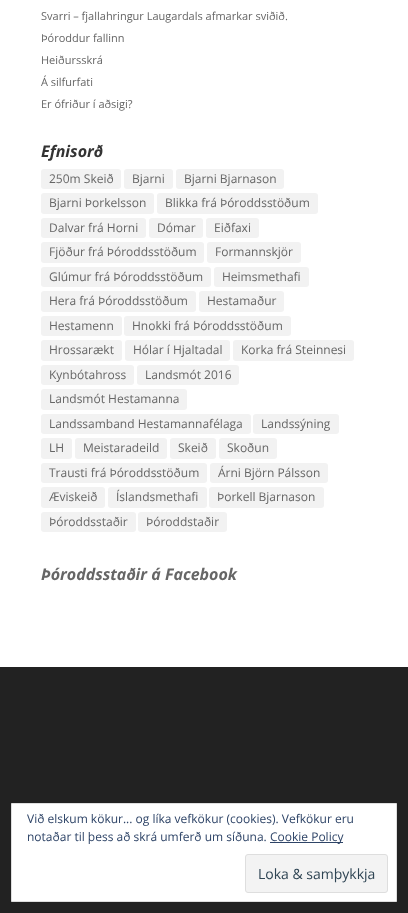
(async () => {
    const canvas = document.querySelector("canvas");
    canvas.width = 408;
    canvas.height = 913;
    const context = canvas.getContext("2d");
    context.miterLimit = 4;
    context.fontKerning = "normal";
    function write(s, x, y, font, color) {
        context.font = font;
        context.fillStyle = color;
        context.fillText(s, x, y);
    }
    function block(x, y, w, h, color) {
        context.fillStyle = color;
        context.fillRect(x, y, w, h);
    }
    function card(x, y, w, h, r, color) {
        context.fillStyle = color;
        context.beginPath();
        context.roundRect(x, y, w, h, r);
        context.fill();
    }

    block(0, 0, 408, 913, "rgb(255, 255, 255)");
    write("Svarri – fjallahringur Laugardals afmarkar sviðið.", 41, 20, "11px Open Sans", "rgb(102, 102, 102)");
    write("Þóroddur fallinn", 41, 42, "11px Open Sans", "rgb(102, 102, 102)");
    write("Heiðursskrá", 41, 64, "11px Open Sans", "rgb(102, 102, 102)");
    write("Á silfurfati", 41, 86, "11px Open Sans", "rgb(102, 102, 102)");
    write("Er ófriður í aðsigi?", 41, 108, "11px Open Sans", "rgb(102, 102, 102)");
    write("Efnisorð", 41, 157, "italic bold 16px Open Sans", "rgb(51, 51, 51)");
    card(41, 169, 80, 20, 3, "rgb(242, 242, 242)");
    write("250m Skeið", 49, 183, "12px Open Sans", "rgb(102, 102, 102)");
    card(124, 169, 49, 20, 3, "rgb(242, 242, 242)");
    write("Bjarni", 132, 183, "12px Open Sans", "rgb(102, 102, 102)");
    card(176, 169, 108, 20, 3, "rgb(242, 242, 242)");
    write("Bjarni Bjarnason", 184, 183, "12px Open Sans", "rgb(102, 102, 102)");
    card(41, 193, 113, 21, 3, "rgb(242, 242, 242)");
    write("Bjarni Þorkelsson", 49, 207, "12px Open Sans", "rgb(102, 102, 102)");
    card(157, 193, 161, 21, 3, "rgb(242, 242, 242)");
    write("Blikka frá Þóroddsstöðum", 165, 207, "12px Open Sans", "rgb(102, 102, 102)");
    card(41, 218, 105, 20, 3, "rgb(242, 242, 242)");
    write("Dalvar frá Horni", 49, 232, "12px Open Sans", "rgb(102, 102, 102)");
    card(149, 218, 54, 20, 3, "rgb(242, 242, 242)");
    write("Dómar", 157, 232, "12px Open Sans", "rgb(102, 102, 102)");
    card(206, 218, 53, 20, 3, "rgb(242, 242, 242)");
    write("Eiðfaxi", 214, 232, "12px Open Sans", "rgb(102, 102, 102)");
    card(41, 242, 163, 21, 3, "rgb(242, 242, 242)");
    write("Fjöður frá Þóroddsstöðum", 49, 256, "12px Open Sans", "rgb(102, 102, 102)");
    card(207, 242, 94, 21, 3, "rgb(242, 242, 242)");
    write("Formannskjör", 215, 256, "12px Open Sans", "rgb(102, 102, 102)");
    card(41, 267, 170, 20, 3, "rgb(242, 242, 242)");
    write("Glúmur frá Þóroddsstöðum", 49, 281, "12px Open Sans", "rgb(102, 102, 102)");
    card(214, 267, 95, 20, 3, "rgb(242, 242, 242)");
    write("Heimsmethafi", 222, 281, "12px Open Sans", "rgb(102, 102, 102)");
    card(41, 291, 155, 21, 3, "rgb(242, 242, 242)");
    write("Hera frá Þóroddsstöðum", 49, 305, "12px Open Sans", "rgb(102, 102, 102)");
    card(199, 291, 85, 21, 3, "rgb(242, 242, 242)");
    write("Hestamaður", 207, 305, "12px Open Sans", "rgb(102, 102, 102)");
    card(41, 316, 81, 20, 3, "rgb(242, 242, 242)");
    write("Hestamenn", 49, 330, "12px Open Sans", "rgb(102, 102, 102)");
    card(124, 316, 167, 20, 3, "rgb(242, 242, 242)");
    write("Hnokki frá Þóroddsstöðum", 132, 330, "12px Open Sans", "rgb(102, 102, 102)");
    card(41, 340, 81, 21, 3, "rgb(242, 242, 242)");
    write("Hrossarækt", 49, 354, "12px Open Sans", "rgb(102, 102, 102)");
    card(125, 340, 105, 21, 3, "rgb(242, 242, 242)");
    write("Hólar í Hjaltadal", 133, 354, "12px Open Sans", "rgb(102, 102, 102)");
    card(233, 340, 121, 21, 3, "rgb(242, 242, 242)");
    write("Korka frá Steinnesi", 241, 354, "12px Open Sans", "rgb(102, 102, 102)");
    card(41, 365, 93, 20, 3, "rgb(242, 242, 242)");
    write("Kynbótahross", 49, 379, "12px Open Sans", "rgb(102, 102, 102)");
    card(137, 365, 102, 20, 3, "rgb(242, 242, 242)");
    write("Landsmót 2016", 145, 379, "12px Open Sans", "rgb(102, 102, 102)");
    card(41, 389, 146, 21, 3, "rgb(242, 242, 242)");
    write("Landsmót Hestamanna", 49, 403, "12px Open Sans", "rgb(102, 102, 102)");
    card(41, 414, 210, 20, 3, "rgb(242, 242, 242)");
    write("Landssamband Hestamannafélaga", 49, 428, "12px Open Sans", "rgb(102, 102, 102)");
    card(253, 414, 86, 20, 3, "rgb(242, 242, 242)");
    write("Landssýning", 261, 428, "12px Open Sans", "rgb(102, 102, 102)");
    card(41, 438, 31, 21, 3, "rgb(242, 242, 242)");
    write("LH", 49, 452, "12px Open Sans", "rgb(102, 102, 102)");
    card(75, 438, 92, 21, 3, "rgb(242, 242, 242)");
    write("Meistaradeild", 83, 452, "12px Open Sans", "rgb(102, 102, 102)");
    card(170, 438, 46, 21, 3, "rgb(242, 242, 242)");
    write("Skeið", 178, 452, "12px Open Sans", "rgb(102, 102, 102)");
    card(219, 438, 58, 21, 3, "rgb(242, 242, 242)");
    write("Skoðun", 227, 452, "12px Open Sans", "rgb(102, 102, 102)");
    card(41, 463, 166, 20, 3, "rgb(242, 242, 242)");
    write("Trausti frá Þóroddsstöðum", 49, 477, "12px Open Sans", "rgb(102, 102, 102)");
    card(210, 463, 118, 20, 3, "rgb(242, 242, 242)");
    write("Árni Björn Pálsson", 218, 477, "12px Open Sans", "rgb(102, 102, 102)");
    card(41, 487, 64, 21, 3, "rgb(242, 242, 242)");
    write("Æviskeið", 49, 501, "12px Open Sans", "rgb(102, 102, 102)");
    card(108, 487, 99, 21, 3, "rgb(242, 242, 242)");
    write("Íslandsmethafi", 116, 501, "12px Open Sans", "rgb(102, 102, 102)");
    card(209, 487, 115, 21, 3, "rgb(242, 242, 242)");
    write("Þorkell Bjarnason", 217, 501, "12px Open Sans", "rgb(102, 102, 102)");
    card(41, 512, 95, 20, 3, "rgb(242, 242, 242)");
    write("Þóroddsstaðir", 49, 526, "12px Open Sans", "rgb(102, 102, 102)");
    card(138, 512, 89, 20, 3, "rgb(242, 242, 242)");
    write("Þóroddstaðir", 146, 526, "12px Open Sans", "rgb(102, 102, 102)");
    write("Þóroddsstaðir á Facebook", 41, 580, "italic bold 16px Open Sans", "rgb(102, 102, 102)");
    block(0, 667, 408, 246, "rgb(34, 34, 34)");
    context.fillStyle = "rgb(255, 255, 255)";
    context.beginPath();
    context.rect(11.5, 803.5, 385, 98);
    context.fill();
    context.strokeStyle = "rgb(222, 222, 222)";
    context.stroke();
    write("Við elskum kökur... og líka vefkökur (cookies). Vefkökur eru", 27, 823, "12px Open Sans", "rgb(46, 68, 103)");
    write("notaðar til þess að skrá umferð um síðuna.", 27, 841, "12px Open Sans", "rgb(46, 68, 103)");
    block(270, 842, 73, 1, "rgb(46, 68, 103)");
    write("Cookie Policy", 270, 841, "12px Open Sans", "rgb(46, 68, 103)");
    context.fillStyle = "rgb(243, 243, 243)";
    context.beginPath();
    context.roundRect(245.5, 854.5, 142, 38, 2.5);
    context.fill();
    context.stroke();
    write("Loka & samþykkja", 258, 879, "14px Open Sans", "rgb(46, 68, 83)");
})();
